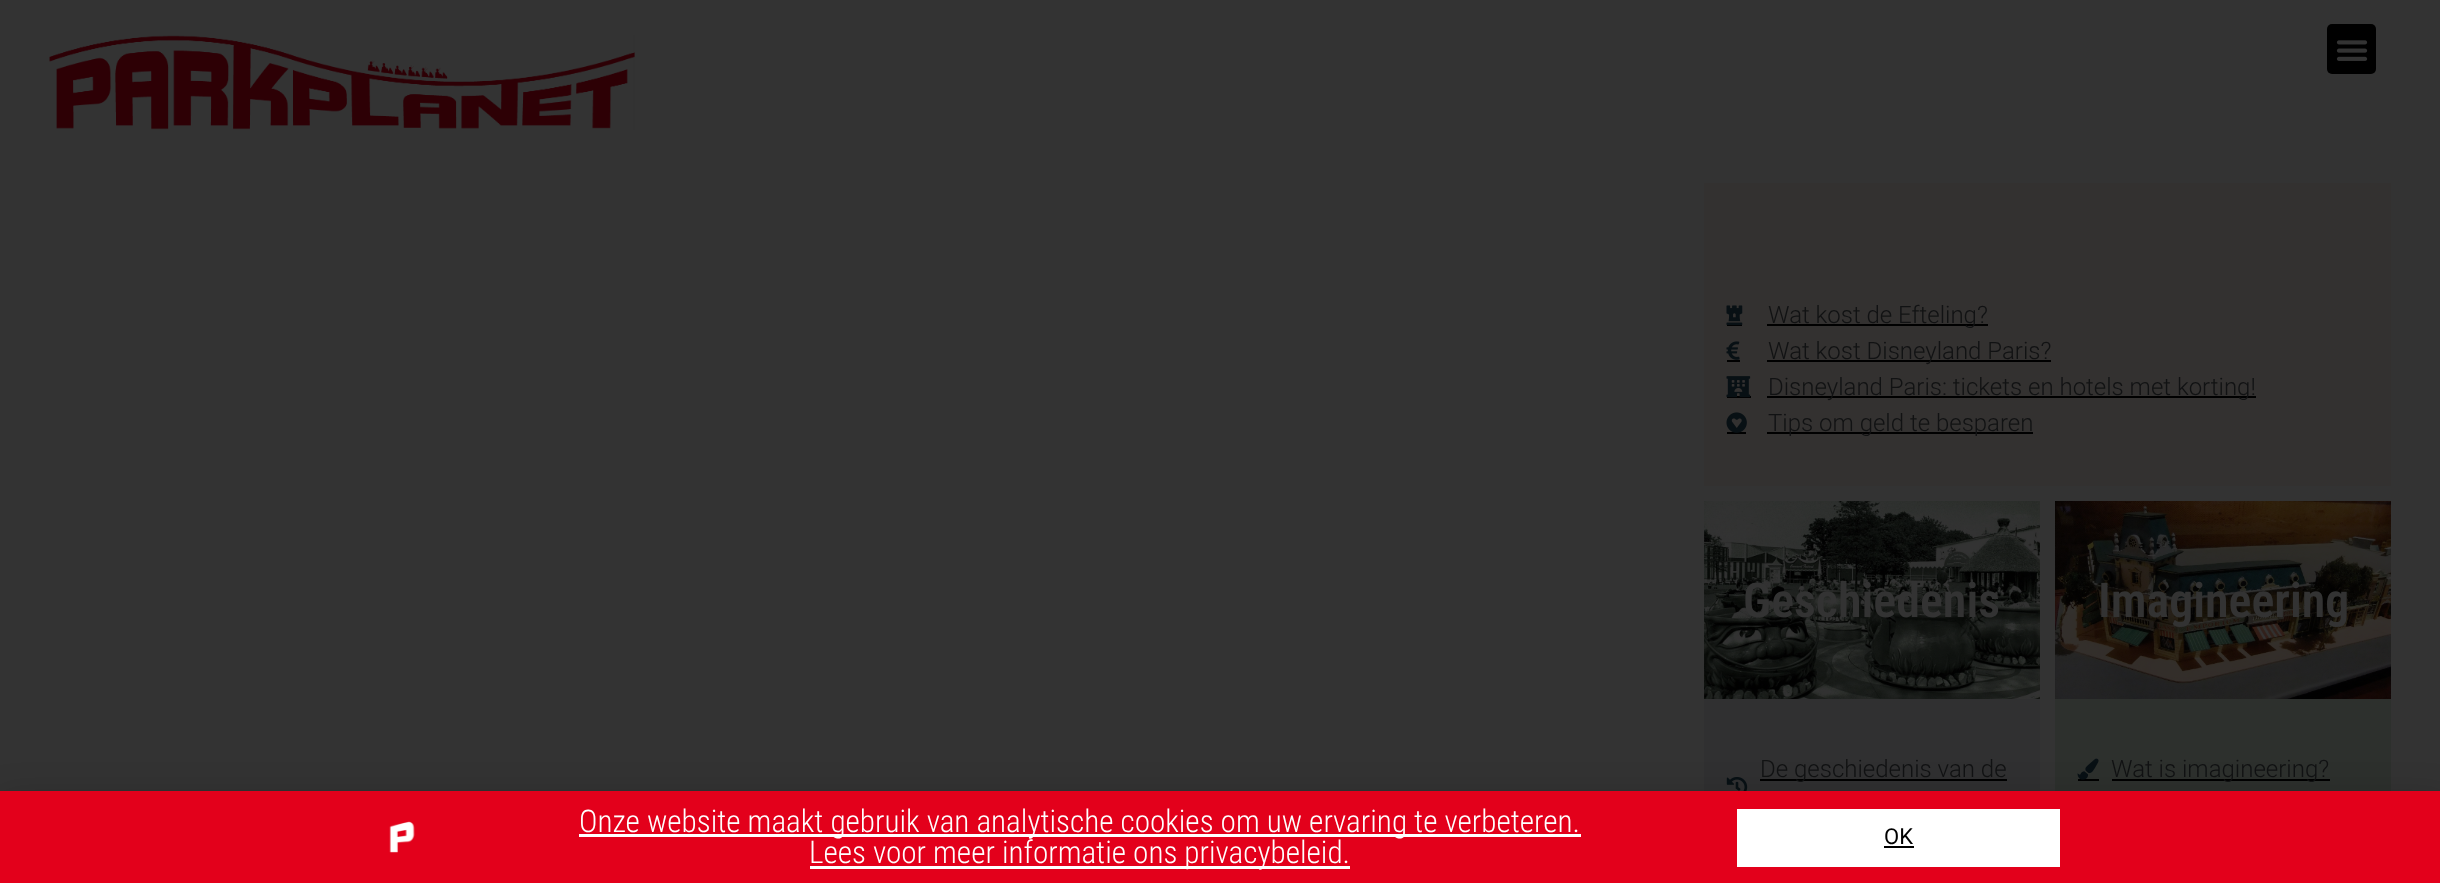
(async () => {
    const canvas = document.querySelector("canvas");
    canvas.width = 2440;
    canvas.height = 883;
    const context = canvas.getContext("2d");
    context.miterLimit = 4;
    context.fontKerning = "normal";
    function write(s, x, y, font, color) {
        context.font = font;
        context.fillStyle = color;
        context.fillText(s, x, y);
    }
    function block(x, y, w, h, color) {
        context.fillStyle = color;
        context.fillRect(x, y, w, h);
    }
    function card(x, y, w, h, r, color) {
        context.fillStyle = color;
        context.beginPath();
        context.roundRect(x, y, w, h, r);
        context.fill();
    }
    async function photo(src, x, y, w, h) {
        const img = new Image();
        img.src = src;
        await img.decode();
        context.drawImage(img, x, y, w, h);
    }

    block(0, 0, 2440, 883, "rgb(51, 51, 51)");
    await photo("media/1.png", 49, 35, 586, 95);
    card(2327, 24, 49, 50, 5, "rgb(0, 0, 0)");
    await photo("media/2.png", 2336, 40, 32, 21);
    block(1704, 183, 687, 303, "rgb(51, 49, 48)");
    block(1727, 325, 15, 1, "rgb(0, 0, 0)");
    await photo("media/3.png", 1726, 305, 17, 21);
    block(1767, 324, 221, 2, "rgb(0, 0, 0)");
    write("Wat kost de Efteling?", 1768, 323, "300 24px Roboto", "rgb(17, 18, 19)");
    await photo("media/4.png", 1726, 341, 14, 19);
    block(1727, 360, 13, 2, "rgb(0, 0, 0)");
    block(1767, 360, 284, 2, "rgb(0, 0, 0)");
    write("Wat kost Disneyland Paris?", 1768, 359, "300 24px Roboto", "rgb(17, 18, 19)");
    block(1727, 396, 24, 2, "rgb(0, 0, 0)");
    await photo("media/5.png", 1726, 376, 25, 22);
    block(1767, 396, 489, 2, "rgb(0, 0, 0)");
    write("Disneyland Paris: tickets en hotels met korting!", 1768, 395, "300 24px Roboto", "rgb(17, 18, 19)");
    block(1727, 432, 19, 2, "rgb(0, 0, 0)");
    await photo("media/6.png", 1726, 412, 21, 21);
    block(1767, 432, 266, 2, "rgb(0, 0, 0)");
    write("Tips om geld te besparen", 1768, 431, "300 24px Roboto", "rgb(17, 18, 19)");
    block(1704, 699, 336, 92, "rgb(48, 48, 49)");
    await photo("media/7.png", 1704, 501, 336, 198);
    write("Geschiedenis", 1743, 617, "600 48px Roboto Condensed", "rgb(51, 51, 51)");
    await photo("media/8.png", 1726, 777, 22, 14);
    block(1760, 779, 247, 2, "rgb(0, 0, 0)");
    write("De geschiedenis van de", 1760, 777, "300 24px Roboto", "rgb(17, 18, 19)");
    block(2055, 699, 336, 92, "rgb(45, 48, 45)");
    await photo("media/9.png", 2055, 501, 336, 198);
    write("Imagineering", 2098, 617, "600 48px Roboto Condensed", "rgb(51, 51, 51)");
    block(2078, 779, 21, 2, "rgb(0, 0, 0)");
    await photo("media/10.png", 2077, 758, 22, 22);
    block(2112, 779, 218, 2, "rgb(0, 0, 0)");
    write("Wat is imagineering?", 2111, 777, "300 24px Roboto", "rgb(17, 18, 19)");
    context.fillStyle = "rgba(0, 0, 0, 0.2)";
    context.filter = "blur(17px)";
    context.beginPath();
    context.rect(-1, 798, 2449, 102);
    context.fill();
    context.filter = "none";
    block(0, 791, 2440, 92, "rgb(227, 0, 27)");
    await photo("media/11.png", 389, 821, 26, 32);
    block(579, 834, 1002, 3, "rgb(255, 255, 255)");
    write("Onze website maakt gebruik van analytische cookies om uw ervaring te verbeteren.", 579, 832, "300 31.2px Roboto Condensed", "rgb(255, 255, 255)");
    block(810, 866, 540, 3, "rgb(255, 255, 255)");
    write("Lees voor meer informatie ons privacybeleid.", 809, 863, "300 31.2px Roboto Condensed", "rgb(255, 255, 255)");
    block(1737, 809, 323, 58, "rgb(255, 255, 255)");
    write("OK", 1884, 844, "22px Roboto", "rgb(0, 0, 0)");
    block(1884, 846, 30, 2, "rgb(0, 0, 0)");
})();
